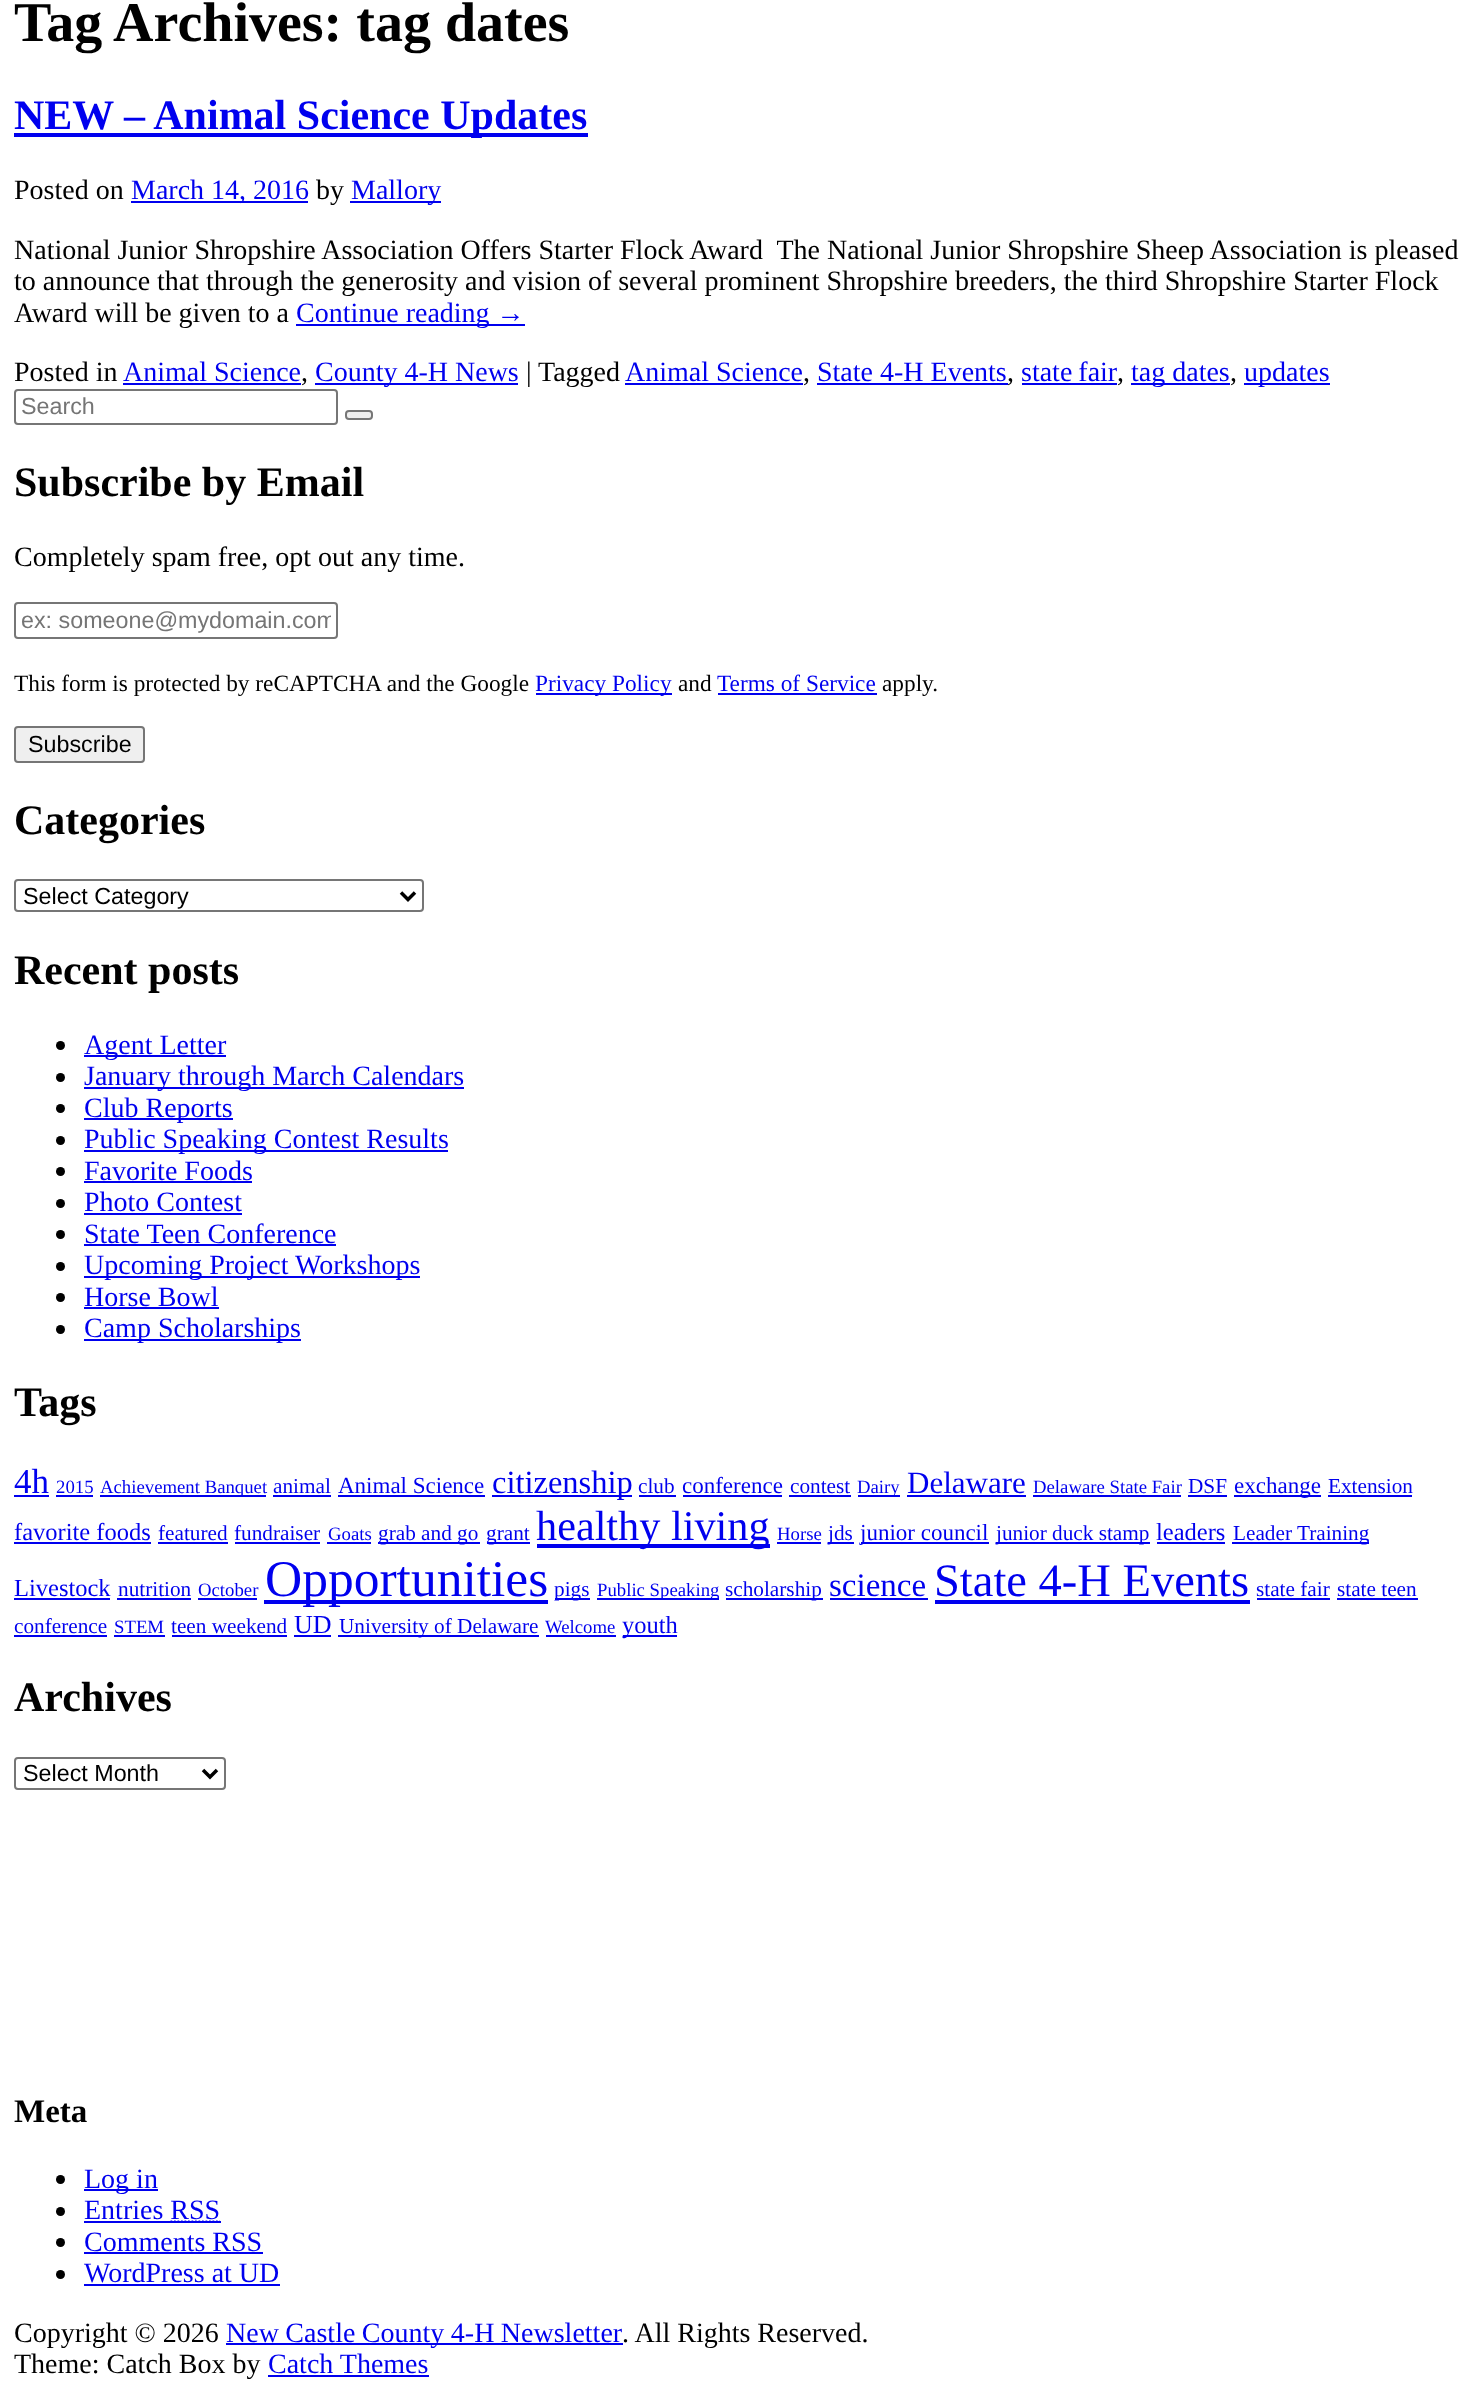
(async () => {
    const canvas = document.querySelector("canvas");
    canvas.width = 1474;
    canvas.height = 2394;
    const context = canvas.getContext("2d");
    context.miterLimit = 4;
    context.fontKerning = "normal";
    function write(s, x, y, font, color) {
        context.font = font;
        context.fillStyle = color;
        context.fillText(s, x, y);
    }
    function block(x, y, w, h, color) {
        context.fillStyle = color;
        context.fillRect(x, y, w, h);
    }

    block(0, 0, 1474, 2394, "rgb(255, 255, 255)");
    write("Tag Archives: tag dates", 14, 41, "bold 56px Liberation Serif", "rgb(0, 0, 0)");
    block(14, 133, 574, 4, "rgb(0, 0, 238)");
    write("NEW – Animal Science Updates", 14, 129, "bold 42px Liberation Serif", "rgb(0, 0, 238)");
    write("Posted on", 14, 199, "28px Liberation Serif", "rgb(0, 0, 0)");
    block(131, 201, 177, 2, "rgb(0, 0, 238)");
    write("March 14, 2016", 131, 199, "28px Liberation Serif", "rgb(0, 0, 238)");
    write("by", 316, 199, "28px Liberation Serif", "rgb(0, 0, 0)");
    block(350, 201, 91, 2, "rgb(0, 0, 238)");
    write("Mallory", 351, 199, "28px Liberation Serif", "rgb(0, 0, 238)");
    write("National Junior Shropshire Association Offers Starter Flock Award  The National Junior Shropshire Sheep Association is pleased", 14, 259, "28px Liberation Serif", "rgb(0, 0, 0)");
    write("to announce that through the generosity and vision of several prominent Shropshire breeders, the third Shropshire Starter Flock", 14, 290, "28px Liberation Serif", "rgb(0, 0, 0)");
    write("Award will be given to a", 14, 322, "28px Liberation Serif", "rgb(0, 0, 0)");
    block(296, 324, 229, 2, "rgb(0, 0, 238)");
    write("Continue reading →", 296, 322, "28px Liberation Serif", "rgb(0, 0, 238)");
    write("Posted in", 14, 381, "28px Liberation Serif", "rgb(0, 0, 0)");
    write("Animal Science", 123, 381, "28px Liberation Serif", "rgb(0, 0, 238)");
    write(",", 301, 381, "28px Liberation Serif", "rgb(0, 0, 0)");
    block(123, 383, 178, 2, "rgb(0, 0, 238)");
    block(315, 383, 203, 2, "rgb(0, 0, 238)");
    write("County 4-H News", 315, 381, "28px Liberation Serif", "rgb(0, 0, 238)");
    write("|", 526, 381, "28px Liberation Serif", "rgb(0, 0, 0)");
    write("Tagged", 538, 381, "28px Liberation Serif", "rgb(0, 0, 0)");
    write("Animal Science", 625, 381, "28px Liberation Serif", "rgb(0, 0, 238)");
    write(",", 803, 381, "28px Liberation Serif", "rgb(0, 0, 0)");
    block(625, 383, 178, 2, "rgb(0, 0, 238)");
    write("State 4-H Events", 817, 381, "28px Liberation Serif", "rgb(0, 0, 238)");
    write(",", 1007, 381, "28px Liberation Serif", "rgb(0, 0, 0)");
    block(817, 383, 191, 2, "rgb(0, 0, 238)");
    context.wordSpacing = "-1px";
    write("state fair", 1021, 381, "28px Liberation Serif", "rgb(0, 0, 238)");
    context.wordSpacing = "0px";
    write(",", 1117, 381, "28px Liberation Serif", "rgb(0, 0, 0)");
    block(1022, 383, 95, 2, "rgb(0, 0, 238)");
    block(1131, 383, 99, 2, "rgb(0, 0, 238)");
    write("tag dates", 1131, 381, "28px Liberation Serif", "rgb(0, 0, 238)");
    write(",", 1230, 381, "28px Liberation Serif", "rgb(0, 0, 0)");
    block(1244, 383, 86, 2, "rgb(0, 0, 238)");
    write("updates", 1244, 381, "28px Liberation Serif", "rgb(0, 0, 238)");
    context.beginPath();
    context.roundRect(15, 390, 322, 34, 3);
    context.strokeStyle = "rgb(118, 118, 118)";
    context.lineWidth = 2;
    context.stroke();
    write("Search", 21, 414, "23.3px Liberation Sans", "rgb(117, 117, 117)");
    context.fillStyle = "rgb(239, 239, 239)";
    context.beginPath();
    context.roundRect(346, 411, 26, 8, 3);
    context.fill();
    context.stroke();
    write("Subscribe by Email", 14, 496, "bold 42px Liberation Serif", "rgb(0, 0, 0)");
    write("Completely spam free, opt out any time.", 14, 566, "28px Liberation Serif", "rgb(0, 0, 0)");
    context.beginPath();
    context.roundRect(15, 603, 322, 35, 3);
    context.stroke();
    context.save();
    context.beginPath();
    context.rect(21, 607, 310, 27);
    context.clip();
    write("ex: someone@mydomain.com", 21, 628, "23.3px Liberation Sans", "rgb(117, 117, 117)");
    context.restore();
    write("This form is protected by reCAPTCHA and the Google", 14, 691, "23.3px Liberation Serif", "rgb(0, 0, 0)");
    block(536, 693, 136, 2, "rgb(0, 0, 238)");
    write("Privacy Policy", 535, 691, "23.3px Liberation Serif", "rgb(0, 0, 238)");
    write("and", 678, 691, "23.3px Liberation Serif", "rgb(0, 0, 0)");
    write("Terms of Service", 717, 691, "23.3px Liberation Serif", "rgb(0, 0, 238)");
    block(718, 693, 159, 2, "rgb(0, 0, 238)");
    write("apply.", 882, 691, "23.3px Liberation Serif", "rgb(0, 0, 0)");
    context.fillStyle = "rgb(239, 239, 239)";
    context.beginPath();
    context.roundRect(15, 727, 129, 35, 3);
    context.fill();
    context.stroke();
    write("Subscribe", 28, 752, "23.3px Liberation Sans", "rgb(0, 0, 0)");
    write("Categories", 14, 834, "bold 42px Liberation Serif", "rgb(0, 0, 0)");
    context.beginPath();
    context.roundRect(15, 880, 408, 31, 3);
    context.stroke();
    context.beginPath();
    context.moveTo(401, 892.5);
    context.lineTo(408, 899.5);
    context.lineTo(415, 892.5);
    context.strokeStyle = "rgb(0, 0, 0)";
    context.lineWidth = 3.5;
    context.stroke();
    write("Select Category", 23, 904, "23.3px Liberation Sans", "rgb(0, 0, 0)");
    write("Recent posts", 14, 984, "bold 42px Liberation Serif", "rgb(0, 0, 0)");
    context.beginPath();
    context.arc(60.5, 1045.5, 4.5, 0, Math.PI * 2);
    context.fill();
    block(84, 1055, 142, 2, "rgb(0, 0, 238)");
    write("Agent Letter", 84, 1054, "28px Liberation Serif", "rgb(0, 0, 238)");
    context.fillStyle = "rgb(0, 0, 0)";
    context.beginPath();
    context.arc(60.5, 1077.5, 4.5, 0, Math.PI * 2);
    context.fill();
    block(84, 1087, 380, 2, "rgb(0, 0, 238)");
    write("January through March Calendars", 84, 1085, "28px Liberation Serif", "rgb(0, 0, 238)");
    context.fillStyle = "rgb(0, 0, 0)";
    context.beginPath();
    context.arc(60.5, 1108.5, 4.5, 0, Math.PI * 2);
    context.fill();
    block(84, 1118, 149, 2, "rgb(0, 0, 238)");
    write("Club Reports", 84, 1117, "28px Liberation Serif", "rgb(0, 0, 238)");
    context.fillStyle = "rgb(0, 0, 0)";
    context.beginPath();
    context.arc(60.5, 1140.5, 4.5, 0, Math.PI * 2);
    context.fill();
    block(84, 1150, 364, 2, "rgb(0, 0, 238)");
    write("Public Speaking Contest Results", 84, 1148, "28px Liberation Serif", "rgb(0, 0, 238)");
    context.fillStyle = "rgb(0, 0, 0)";
    context.beginPath();
    context.arc(60.5, 1171.5, 4.5, 0, Math.PI * 2);
    context.fill();
    write("Favorite Foods", 84, 1180, "28px Liberation Serif", "rgb(0, 0, 238)");
    block(84, 1181, 168, 2, "rgb(0, 0, 238)");
    context.fillStyle = "rgb(0, 0, 0)";
    context.beginPath();
    context.arc(60.5, 1203.5, 4.5, 0, Math.PI * 2);
    context.fill();
    write("Photo Contest", 84, 1211, "28px Liberation Serif", "rgb(0, 0, 238)");
    block(84, 1213, 158, 2, "rgb(0, 0, 238)");
    context.fillStyle = "rgb(0, 0, 0)";
    context.beginPath();
    context.arc(60.5, 1234.5, 4.5, 0, Math.PI * 2);
    context.fill();
    write("State Teen Conference", 84, 1243, "28px Liberation Serif", "rgb(0, 0, 238)");
    block(84, 1244, 252, 2, "rgb(0, 0, 238)");
    context.fillStyle = "rgb(0, 0, 0)";
    context.beginPath();
    context.arc(60.5, 1266.5, 4.5, 0, Math.PI * 2);
    context.fill();
    block(84, 1276, 336, 2, "rgb(0, 0, 238)");
    write("Upcoming Project Workshops", 84, 1274, "28px Liberation Serif", "rgb(0, 0, 238)");
    context.fillStyle = "rgb(0, 0, 0)";
    context.beginPath();
    context.arc(60.5, 1297.5, 4.5, 0, Math.PI * 2);
    context.fill();
    write("Horse Bowl", 84, 1306, "28px Liberation Serif", "rgb(0, 0, 238)");
    block(84, 1307, 135, 2, "rgb(0, 0, 238)");
    context.fillStyle = "rgb(0, 0, 0)";
    context.beginPath();
    context.arc(60.5, 1329.5, 4.5, 0, Math.PI * 2);
    context.fill();
    block(84, 1339, 217, 2, "rgb(0, 0, 238)");
    write("Camp Scholarships", 84, 1337, "28px Liberation Serif", "rgb(0, 0, 238)");
    write("Tags", 14, 1416, "bold 42px Liberation Serif", "rgb(0, 0, 0)");
    write("4h", 14, 1493, "35px Liberation Serif", "rgb(0, 0, 238)");
    block(14, 1495, 35, 2, "rgb(0, 0, 238)");
    write("2015", 56, 1493, "18.75px Liberation Serif", "rgb(0, 0, 238)");
    block(56, 1495, 37, 2, "rgb(0, 0, 238)");
    block(100, 1495, 166, 2, "rgb(0, 0, 238)");
    write("Achievement Banquet", 100, 1493, "18.75px Liberation Serif", "rgb(0, 0, 238)");
    write("animal", 273, 1493, "21.25px Liberation Serif", "rgb(0, 0, 238)");
    block(273, 1495, 58, 2, "rgb(0, 0, 238)");
    write("Animal Science", 338, 1493, "23px Liberation Serif", "rgb(0, 0, 238)");
    block(338, 1495, 147, 2, "rgb(0, 0, 238)");
    block(492, 1495, 140, 2, "rgb(0, 0, 238)");
    write("citizenship", 492, 1493, "32.5px Liberation Serif", "rgb(0, 0, 238)");
    write("club", 638, 1493, "21.25px Liberation Serif", "rgb(0, 0, 238)");
    block(639, 1495, 37, 2, "rgb(0, 0, 238)");
    write("conference", 682, 1493, "23px Liberation Serif", "rgb(0, 0, 238)");
    block(683, 1495, 99, 2, "rgb(0, 0, 238)");
    write("contest", 790, 1493, "21.25px Liberation Serif", "rgb(0, 0, 238)");
    block(789, 1495, 62, 2, "rgb(0, 0, 238)");
    block(858, 1495, 42, 2, "rgb(0, 0, 238)");
    write("Dairy", 857, 1493, "18.75px Liberation Serif", "rgb(0, 0, 238)");
    write("Delaware", 907, 1493, "31px Liberation Serif", "rgb(0, 0, 238)");
    block(907, 1495, 119, 2, "rgb(0, 0, 238)");
    write("Delaware State Fair", 1033, 1493, "18.75px Liberation Serif", "rgb(0, 0, 238)");
    block(1033, 1495, 148, 2, "rgb(0, 0, 238)");
    write("DSF", 1188, 1493, "21.25px Liberation Serif", "rgb(0, 0, 238)");
    block(1188, 1495, 39, 2, "rgb(0, 0, 238)");
    block(1234, 1495, 87, 2, "rgb(0, 0, 238)");
    write("exchange", 1234, 1493, "23px Liberation Serif", "rgb(0, 0, 238)");
    write("Extension", 1328, 1493, "21.25px Liberation Serif", "rgb(0, 0, 238)");
    block(1328, 1495, 84, 2, "rgb(0, 0, 238)");
    write("favorite foods", 14, 1540, "24.5px Liberation Serif", "rgb(0, 0, 238)");
    block(14, 1542, 137, 2, "rgb(0, 0, 238)");
    write("featured", 158, 1540, "21.25px Liberation Serif", "rgb(0, 0, 238)");
    block(158, 1542, 70, 2, "rgb(0, 0, 238)");
    write("fundraiser", 234, 1540, "21.25px Liberation Serif", "rgb(0, 0, 238)");
    block(235, 1542, 85, 2, "rgb(0, 0, 238)");
    write("Goats", 328, 1540, "18.75px Liberation Serif", "rgb(0, 0, 238)");
    block(327, 1542, 44, 2, "rgb(0, 0, 238)");
    block(378, 1542, 102, 2, "rgb(0, 0, 238)");
    write("grab and go", 378, 1540, "21.25px Liberation Serif", "rgb(0, 0, 238)");
    block(487, 1542, 43, 2, "rgb(0, 0, 238)");
    write("grant", 486, 1540, "21.25px Liberation Serif", "rgb(0, 0, 238)");
    block(537, 1544, 233, 4, "rgb(0, 0, 238)");
    write("healthy living", 536, 1540, "42.25px Liberation Serif", "rgb(0, 0, 238)");
    write("Horse", 777, 1540, "18.75px Liberation Serif", "rgb(0, 0, 238)");
    block(777, 1542, 44, 2, "rgb(0, 0, 238)");
    block(828, 1542, 26, 2, "rgb(0, 0, 238)");
    write("jds", 828, 1540, "21.25px Liberation Serif", "rgb(0, 0, 238)");
    block(861, 1542, 128, 2, "rgb(0, 0, 238)");
    write("junior council", 860, 1540, "23px Liberation Serif", "rgb(0, 0, 238)");
    block(996, 1542, 154, 2, "rgb(0, 0, 238)");
    write("junior duck stamp", 996, 1540, "21.25px Liberation Serif", "rgb(0, 0, 238)");
    write("leaders", 1156, 1540, "24.5px Liberation Serif", "rgb(0, 0, 238)");
    block(1157, 1542, 68, 2, "rgb(0, 0, 238)");
    block(1232, 1542, 137, 2, "rgb(0, 0, 238)");
    write("Leader Training", 1233, 1540, "21.25px Liberation Serif", "rgb(0, 0, 238)");
    write("Livestock", 14, 1596, "24.5px Liberation Serif", "rgb(0, 0, 238)");
    block(14, 1598, 96, 2, "rgb(0, 0, 238)");
    write("nutrition", 118, 1596, "21.25px Liberation Serif", "rgb(0, 0, 238)");
    block(117, 1598, 74, 2, "rgb(0, 0, 238)");
    write("October", 198, 1596, "18.75px Liberation Serif", "rgb(0, 0, 238)");
    block(198, 1598, 59, 2, "rgb(0, 0, 238)");
    block(264, 1600, 284, 4, "rgb(0, 0, 238)");
    write("Opportunities", 265, 1596, "51.5px Liberation Serif", "rgb(0, 0, 238)");
    block(555, 1598, 35, 2, "rgb(0, 0, 238)");
    write("pigs", 554, 1596, "21.25px Liberation Serif", "rgb(0, 0, 238)");
    block(597, 1598, 122, 2, "rgb(0, 0, 238)");
    write("Public Speaking", 597, 1596, "18.75px Liberation Serif", "rgb(0, 0, 238)");
    block(726, 1598, 97, 2, "rgb(0, 0, 238)");
    write("scholarship", 725, 1596, "21.25px Liberation Serif", "rgb(0, 0, 238)");
    write("science", 829, 1596, "33px Liberation Serif", "rgb(0, 0, 238)");
    block(830, 1598, 98, 2, "rgb(0, 0, 238)");
    write("State 4-H Events", 934, 1596, "46.5px Liberation Serif", "rgb(0, 0, 238)");
    block(935, 1600, 315, 4, "rgb(0, 0, 238)");
    write("state fair", 1256, 1596, "21.25px Liberation Serif", "rgb(0, 0, 238)");
    block(1257, 1598, 73, 2, "rgb(0, 0, 238)");
    write("state teen", 1337, 1596, "21.25px Liberation Serif", "rgb(0, 0, 238)");
    block(1337, 1598, 81, 2, "rgb(0, 0, 238)");
    write("conference", 14, 1633, "21.25px Liberation Serif", "rgb(0, 0, 238)");
    block(14, 1635, 93, 2, "rgb(0, 0, 238)");
    write("STEM", 114, 1633, "18.75px Liberation Serif", "rgb(0, 0, 238)");
    block(114, 1635, 51, 2, "rgb(0, 0, 238)");
    write("teen weekend", 171, 1633, "21.25px Liberation Serif", "rgb(0, 0, 238)");
    block(172, 1635, 115, 2, "rgb(0, 0, 238)");
    write("UD", 294, 1633, "26px Liberation Serif", "rgb(0, 0, 238)");
    block(294, 1635, 37, 2, "rgb(0, 0, 238)");
    block(338, 1635, 201, 2, "rgb(0, 0, 238)");
    write("University of Delaware", 339, 1633, "21.25px Liberation Serif", "rgb(0, 0, 238)");
    write("Welcome", 545, 1633, "18.75px Liberation Serif", "rgb(0, 0, 238)");
    block(546, 1635, 70, 2, "rgb(0, 0, 238)");
    block(623, 1635, 54, 2, "rgb(0, 0, 238)");
    write("youth", 622, 1633, "24.5px Liberation Serif", "rgb(0, 0, 238)");
    write("Archives", 14, 1711, "bold 42px Liberation Serif", "rgb(0, 0, 0)");
    context.beginPath();
    context.roundRect(15, 1758, 210, 31, 3);
    context.strokeStyle = "rgb(118, 118, 118)";
    context.lineWidth = 2;
    context.stroke();
    context.beginPath();
    context.moveTo(203, 1770);
    context.lineTo(210, 1777);
    context.lineTo(217, 1770);
    context.strokeStyle = "rgb(0, 0, 0)";
    context.lineWidth = 3.5;
    context.stroke();
    write("Select Month", 23, 1781, "23.3px Liberation Sans", "rgb(0, 0, 0)");
    write("Meta", 14, 2122, "bold 33px Liberation Serif", "rgb(0, 0, 0)");
    context.beginPath();
    context.arc(60.5, 2179.5, 4.5, 0, Math.PI * 2);
    context.fill();
    block(84, 2189, 74, 2, "rgb(0, 0, 238)");
    write("Log in", 84, 2188, "28px Liberation Serif", "rgb(0, 0, 238)");
    context.fillStyle = "rgb(0, 0, 0)";
    context.beginPath();
    context.arc(60.5, 2211.5, 4.5, 0, Math.PI * 2);
    context.fill();
    write("Entries RSS", 84, 2219, "28px Liberation Serif", "rgb(0, 0, 238)");
    block(84, 2221, 86, 2, "rgb(0, 0, 238)");
    context.beginPath();
    context.moveTo(170.5, 2221.5);
    context.lineTo(220, 2221.5);
    context.strokeStyle = "rgb(0, 0, 238)";
    context.lineWidth = 1.8;
    context.setLineDash([1.75, 1.75]);
    context.stroke();
    block(170, 2221, 51, 2, "rgb(0, 0, 238)");
    context.fillStyle = "rgb(0, 0, 0)";
    context.beginPath();
    context.arc(60.5, 2242.5, 4.5, 0, Math.PI * 2);
    context.fill();
    write("Comments RSS", 84, 2251, "28px Liberation Serif", "rgb(0, 0, 238)");
    block(84, 2252, 179, 2, "rgb(0, 0, 238)");
    context.fillStyle = "rgb(0, 0, 0)";
    context.beginPath();
    context.arc(60.5, 2274.5, 4.5, 0, Math.PI * 2);
    context.fill();
    write("WordPress at UD", 84, 2282, "28px Liberation Serif", "rgb(0, 0, 238)");
    block(84, 2284, 196, 2, "rgb(0, 0, 238)");
    write("Copyright © 2026", 14, 2342, "28px Liberation Serif", "rgb(0, 0, 0)");
    block(226, 2343, 397, 2, "rgb(0, 0, 238)");
    context.wordSpacing = "-0.5px";
    write("New Castle County 4-H Newsletter", 226, 2342, "28px Liberation Serif", "rgb(0, 0, 238)");
    context.wordSpacing = "0px";
    write(". All Rights Reserved.", 622, 2342, "28px Liberation Serif", "rgb(0, 0, 0)");
    write("Theme: Catch Box by", 14, 2373, "28px Liberation Serif", "rgb(0, 0, 0)");
    write("Catch Themes", 268, 2373, "28px Liberation Serif", "rgb(0, 0, 238)");
    block(268, 2375, 161, 2, "rgb(0, 0, 238)");
})();
